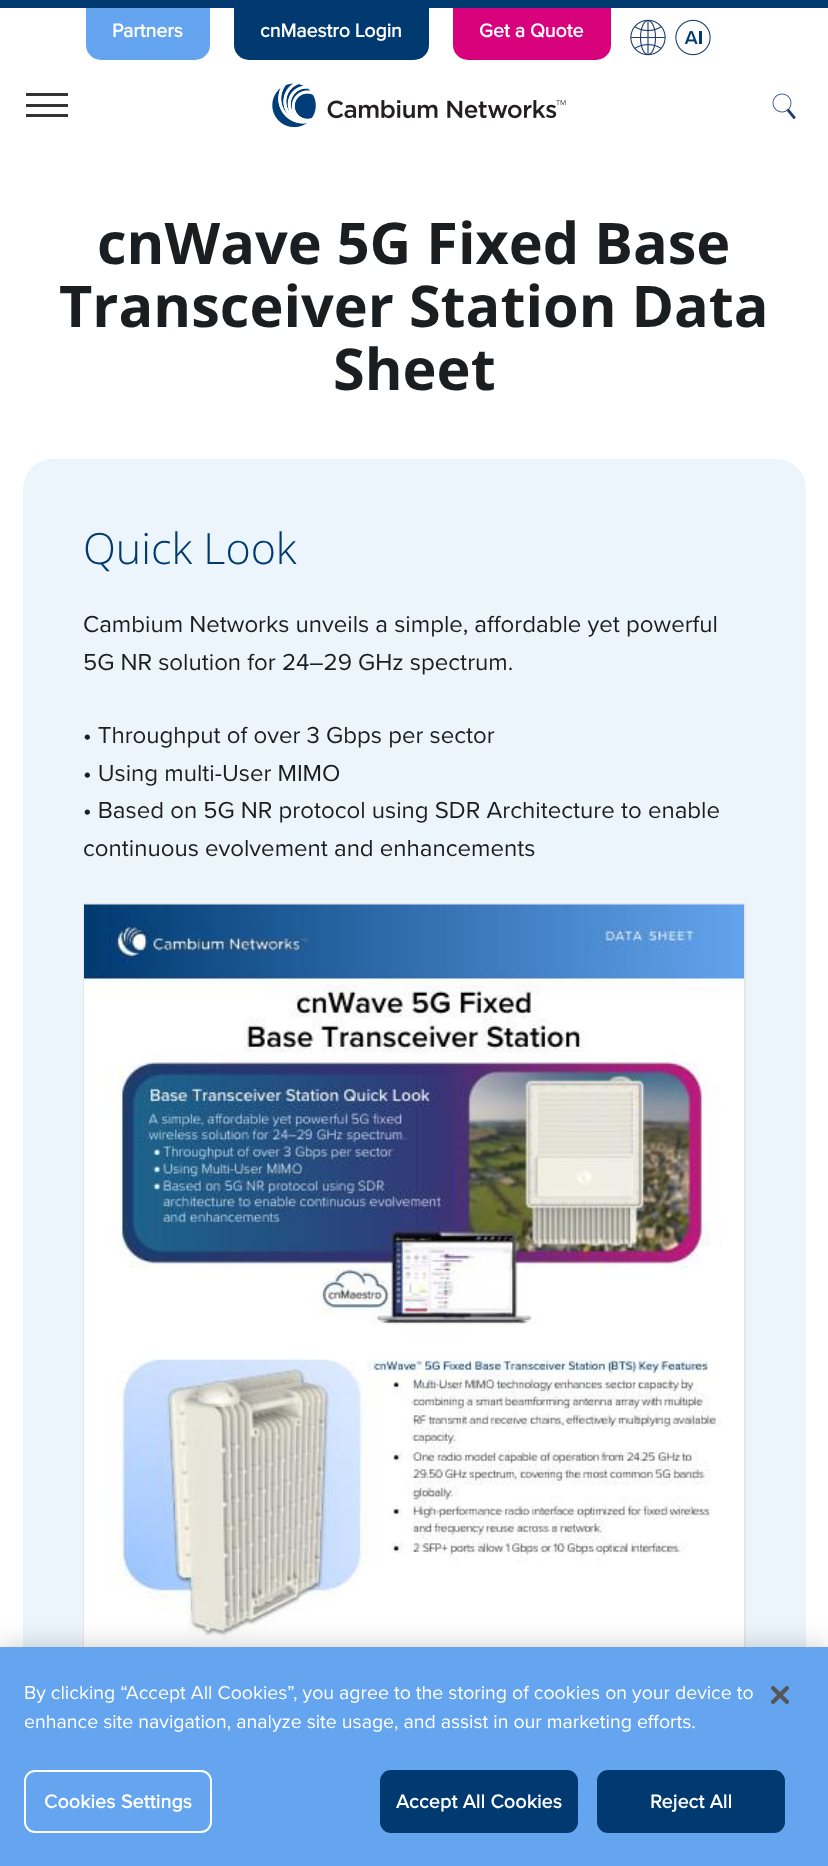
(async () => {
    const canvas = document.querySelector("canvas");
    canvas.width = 828;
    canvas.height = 1866;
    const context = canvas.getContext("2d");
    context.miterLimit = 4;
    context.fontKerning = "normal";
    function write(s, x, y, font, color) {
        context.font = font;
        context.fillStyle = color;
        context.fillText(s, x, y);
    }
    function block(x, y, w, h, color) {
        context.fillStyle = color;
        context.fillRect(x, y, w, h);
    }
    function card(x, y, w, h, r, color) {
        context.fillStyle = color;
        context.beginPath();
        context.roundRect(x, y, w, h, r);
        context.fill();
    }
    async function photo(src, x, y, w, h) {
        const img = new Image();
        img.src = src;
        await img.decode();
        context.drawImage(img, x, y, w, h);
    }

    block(0, 0, 828, 1866, "rgb(255, 255, 255)");
    block(0, 0, 828, 8, "rgb(0, 58, 112)");
    context.fillStyle = "rgb(101, 164, 239)";
    context.beginPath();
    context.roundRect(86, 8, 124, 52, [0, 0, 15, 15]);
    context.fill();
    write("Partners", 112, 37, "bold 19.5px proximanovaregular", "rgb(255, 255, 255)");
    context.fillStyle = "rgb(0, 58, 112)";
    context.beginPath();
    context.roundRect(234, 8, 195, 52, [0, 0, 15, 15]);
    context.fill();
    write("cnMaestro Login", 260, 37, "bold 19.5px proximanovaregular", "rgb(255, 255, 255)");
    context.fillStyle = "rgb(217, 2, 125)";
    context.beginPath();
    context.roundRect(453, 8, 158, 52, [0, 0, 15, 15]);
    context.fill();
    write("Get a Quote", 479, 37, "bold 19.5px proximanovaregular", "rgb(255, 255, 255)");
    await photo("media/1.png", 630, 19, 36, 37);
    await photo("media/2.png", 675, 19, 36, 37);
    block(26, 93, 42, 3, "rgb(51, 51, 51)");
    block(26, 104, 42, 3, "rgb(51, 51, 51)");
    block(26, 114, 42, 3, "rgb(51, 51, 51)");
    await photo("media/3.png", 272, 83, 294, 45);
    await photo("media/4.png", 772, 93, 24, 26);
    write("cnWave 5G Fixed Base", 97, 264, "bold 57.6px Open Sans", "rgb(27, 30, 33)");
    write("Transceiver Station Data", 59, 327, "bold 57.6px Open Sans", "rgb(27, 30, 33)");
    write("Sheet", 333, 390, "bold 57.6px Open Sans", "rgb(27, 30, 33)");
    card(23, 459, 783, 1361, 30, "rgb(236, 244, 252)");
    write("Quick Look", 83, 564, "300 43px Open Sans", "rgb(0, 58, 112)");
    write("Cambium Networks unveils a simple, affordable yet powerful", 83, 632, "24px proximanovaregular", "rgb(27, 30, 33)");
    write("5G NR solution for 24–29 GHz spectrum.", 83, 670, "24px proximanovaregular", "rgb(27, 30, 33)");
    write("• Throughput of over 3 Gbps per sector", 83, 743, "24px proximanovaregular", "rgb(27, 30, 33)");
    write("• Using multi-User MIMO", 83, 781, "24px proximanovaregular", "rgb(27, 30, 33)");
    write("• Based on 5G NR protocol using SDR Architecture to enable", 83, 818, "24px proximanovaregular", "rgb(27, 30, 33)");
    write("continuous evolvement and enhancements", 83, 856, "24px proximanovaregular", "rgb(27, 30, 33)");
    context.strokeStyle = "rgb(231, 231, 231)";
    context.lineWidth = 2;
    context.strokeRect(84, 904, 661, 855);
    await photo("media/5.png", 84, 904, 660, 743);
    context.fillStyle = "rgba(0, 0, 0, 0.2)";
    context.filter = "blur(13.5px)";
    context.beginPath();
    context.rect(0, 1647, 828, 219);
    context.fill();
    context.filter = "none";
    block(0, 1647, 828, 219, "rgb(101, 164, 239)");
    write("By clicking “Accept All Cookies”, you agree to the storing of cookies on your device to", 24, 1699, "19.5px proximanovaregular", "rgb(255, 255, 255)");
    write("enhance site navigation, analyze site usage, and assist in our marketing efforts.", 24, 1728, "19.5px proximanovaregular", "rgb(255, 255, 255)");
    context.beginPath();
    context.roundRect(25, 1771, 186, 61, 10);
    context.strokeStyle = "rgb(255, 255, 255)";
    context.stroke();
    context.letterSpacing = "0.25px";
    write("Cookies Settings", 44, 1808, "bold 19.5px proximanovaregular", "rgb(255, 255, 255)");
    context.fillStyle = "rgb(0, 58, 112)";
    context.beginPath();
    context.roundRect(381, 1771, 196, 61, 10);
    context.fill();
    context.strokeStyle = "rgb(0, 58, 112)";
    context.stroke();
    write("Accept All Cookies", 396, 1808, "bold 19.5px proximanovaregular", "rgb(255, 255, 255)");
    context.fillStyle = "rgb(0, 58, 112)";
    context.beginPath();
    context.roundRect(598, 1771, 186, 61, 10);
    context.fill();
    context.stroke();
    write("Reject All", 650, 1808, "bold 19.5px proximanovaregular", "rgb(255, 255, 255)");
    await photo("media/6.png", 771, 1686, 18, 18);
})();
